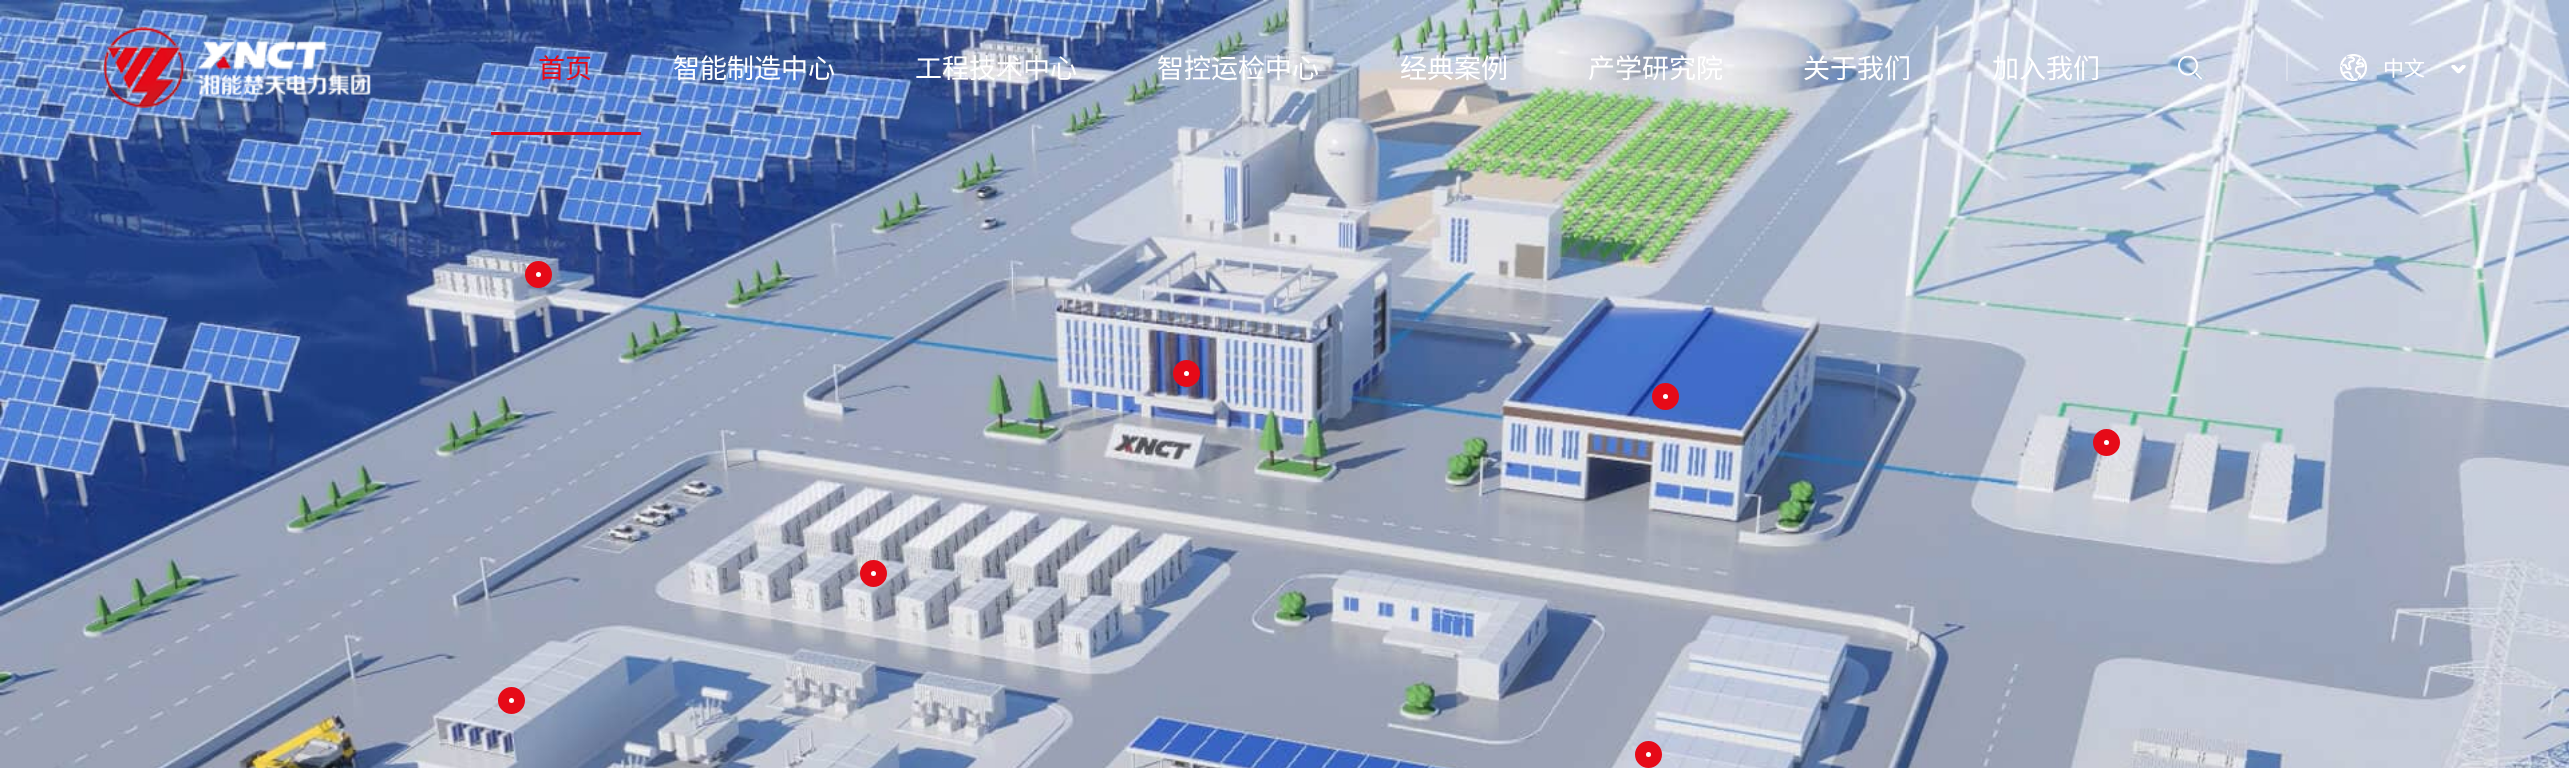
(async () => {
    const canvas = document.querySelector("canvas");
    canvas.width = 2569;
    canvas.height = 768;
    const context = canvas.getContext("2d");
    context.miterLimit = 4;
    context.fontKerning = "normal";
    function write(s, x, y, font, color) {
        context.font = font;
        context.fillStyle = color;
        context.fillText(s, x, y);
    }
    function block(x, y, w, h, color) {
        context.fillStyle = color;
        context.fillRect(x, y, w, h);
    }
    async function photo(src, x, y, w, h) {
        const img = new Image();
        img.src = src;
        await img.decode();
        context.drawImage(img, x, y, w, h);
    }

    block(0, 0, 2569, 768, "rgb(255, 255, 255)");
    await photo("media/1.png", 0, 0, 2569, 768);
    context.beginPath();
    context.arc(538.5, 274.5, 8, 0, Math.PI * 2);
    context.fill();
    context.strokeStyle = "rgb(230, 10, 24)";
    context.lineWidth = 11;
    context.stroke();
    context.beginPath();
    context.arc(1186.5, 373.5, 8, 0, Math.PI * 2);
    context.fill();
    context.stroke();
    context.beginPath();
    context.arc(1665.5, 396.5, 8, 0, Math.PI * 2);
    context.fill();
    context.stroke();
    context.beginPath();
    context.arc(2106.5, 442.5, 8, 0, Math.PI * 2);
    context.fill();
    context.stroke();
    context.beginPath();
    context.arc(873.5, 573.5, 8, 0, Math.PI * 2);
    context.fill();
    context.stroke();
    context.beginPath();
    context.arc(511.5, 700.5, 8, 0, Math.PI * 2);
    context.fill();
    context.stroke();
    context.beginPath();
    context.arc(1648.5, 754.5, 8, 0, Math.PI * 2);
    context.fill();
    context.stroke();
    await photo("media/2.png", 104, 27, 267, 81);
    write("首页", 538, 78, "27px Noto Sans CJK SC", "rgb(230, 10, 24)");
    block(491, 132, 150, 3, "rgb(230, 10, 24)");
    write("智能制造中心", 673, 78, "27px Noto Sans CJK SC", "rgb(255, 255, 255)");
    write("工程技术中心", 915, 78, "27px Noto Sans CJK SC", "rgb(255, 255, 255)");
    write("智控运检中心", 1157, 78, "27px Noto Sans CJK SC", "rgb(255, 255, 255)");
    write("经典案例", 1400, 78, "27px Noto Sans CJK SC", "rgb(255, 255, 255)");
    write("产学研究院", 1588, 78, "27px Noto Sans CJK SC", "rgb(255, 255, 255)");
    write("关于我们", 1803, 78, "27px Noto Sans CJK SC", "rgb(255, 255, 255)");
    write("加入我们", 1992, 78, "27px Noto Sans CJK SC", "rgb(255, 255, 255)");
    await photo("media/3.png", 2178, 56, 24, 24);
    block(2286, 54, 2, 27, "rgba(255, 255, 255, 0.3)");
    await photo("media/4.png", 2340, 54, 27, 27);
    write("中文", 2383, 76, "21px Noto Sans CJK SC", "rgb(255, 255, 255)");
    await photo("media/5.png", 2451, 65, 15, 9);
})();
